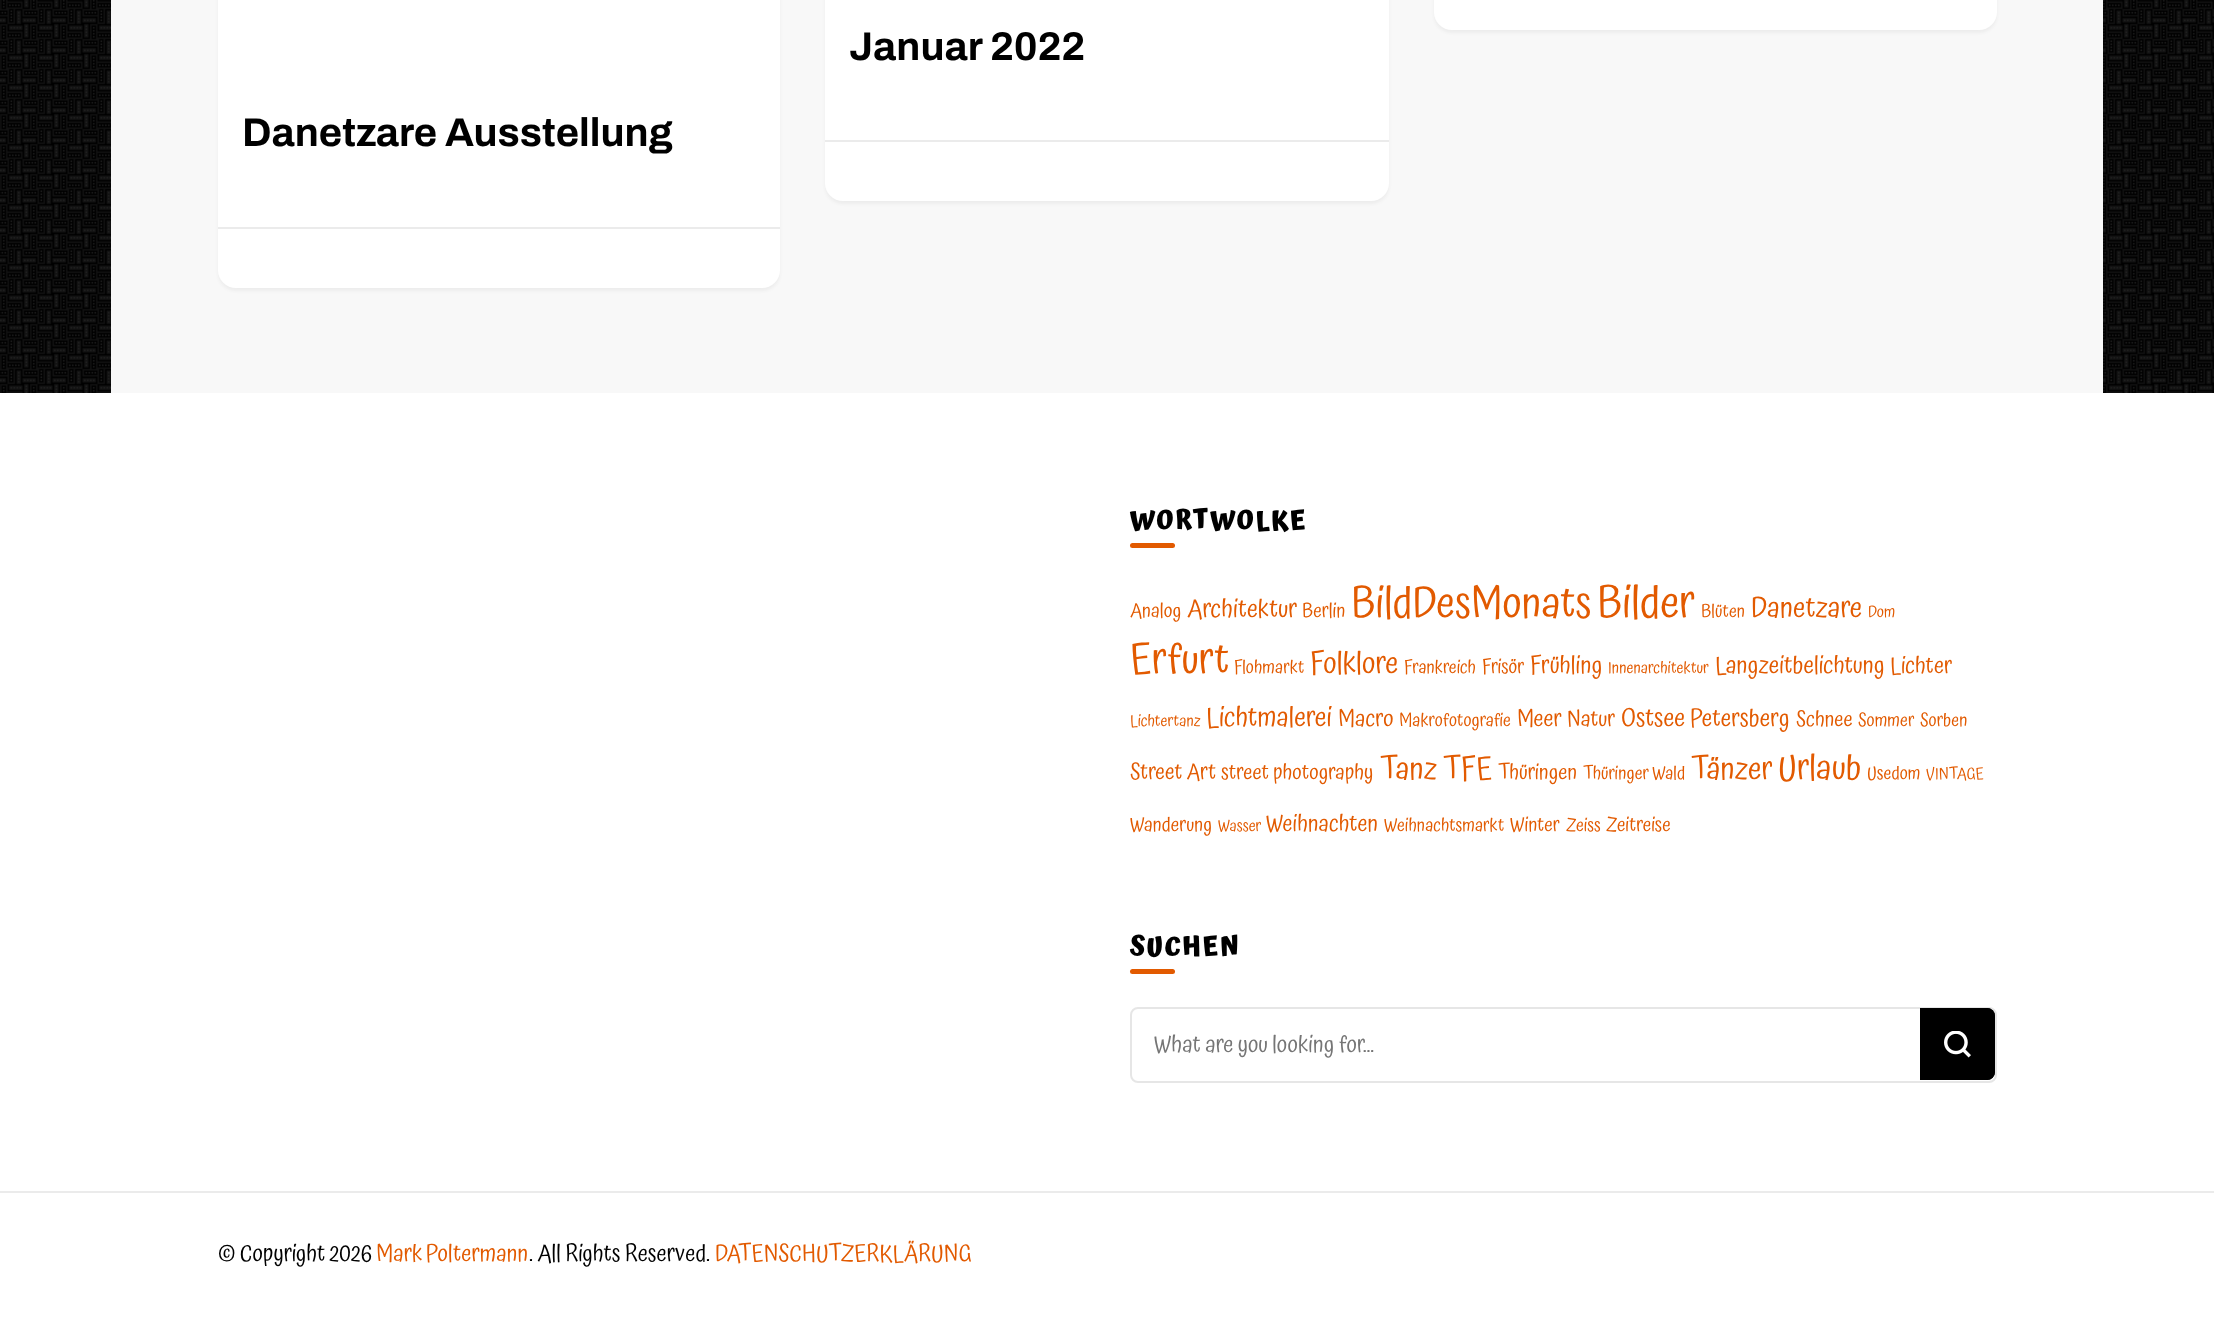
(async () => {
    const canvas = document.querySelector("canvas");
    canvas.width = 2214;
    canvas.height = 1317;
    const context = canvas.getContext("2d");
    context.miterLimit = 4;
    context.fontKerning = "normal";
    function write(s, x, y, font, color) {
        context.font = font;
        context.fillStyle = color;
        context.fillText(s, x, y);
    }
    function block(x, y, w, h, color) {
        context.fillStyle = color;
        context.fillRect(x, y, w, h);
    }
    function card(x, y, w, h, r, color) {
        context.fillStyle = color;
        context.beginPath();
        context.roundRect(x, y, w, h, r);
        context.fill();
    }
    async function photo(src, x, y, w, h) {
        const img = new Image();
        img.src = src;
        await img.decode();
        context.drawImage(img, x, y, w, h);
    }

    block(0, 0, 2214, 1317, "rgb(255, 255, 255)");
    await photo("media/1.png", 0, 0, 2214, 393);
    block(111, 0, 1992, 393, "rgb(248, 248, 248)");
    context.fillStyle = "rgba(45, 45, 45, 0.05)";
    context.filter = "blur(1.5px)";
    context.beginPath();
    context.roundRect(1434, -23, 563, 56, 18);
    context.fill();
    context.filter = "none";
    card(1434, -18, 563, 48, 18, "rgb(255, 255, 255)");
    context.fillStyle = "rgba(45, 45, 45, 0.05)";
    context.filter = "blur(1.5px)";
    context.beginPath();
    context.roundRect(825, -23, 564, 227, 18);
    context.fill();
    context.filter = "none";
    card(825, -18, 564, 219, 18, "rgb(255, 255, 255)");
    write("Januar 2022", 849, 60, "600 40px Archivo", "rgb(0, 0, 0)");
    block(825, 140, 564, 2, "rgb(235, 235, 235)");
    context.fillStyle = "rgba(45, 45, 45, 0.05)";
    context.filter = "blur(1.5px)";
    context.beginPath();
    context.roundRect(218, -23, 562, 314, 18);
    context.fill();
    context.filter = "none";
    card(218, -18, 562, 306, 18, "rgb(255, 255, 255)");
    write("Danetzare Ausstellung", 242, 146, "600 40px Archivo", "rgb(0, 0, 0)");
    block(218, 227, 562, 2, "rgb(235, 235, 235)");
    block(0, 1191, 2214, 2, "rgb(235, 235, 235)");
    context.letterSpacing = "1.5px";
    write("WORTWOLKE", 1130, 529, "bold 26.75px Atma", "rgb(0, 0, 0)");
    card(1130, 543, 45, 5, 2.5, "rgb(226, 90, 0)");
    context.letterSpacing = "0px";
    write("Analog", 1130, 617, "19.5px Atma", "rgb(226, 90, 0)");
    write("Architektur", 1187, 617, "25px Atma", "rgb(226, 90, 0)");
    write("Berlin", 1302, 617, "19.5px Atma", "rgb(226, 90, 0)");
    write("BildDesMonats", 1351, 617, "42.75px Atma", "rgb(226, 90, 0)");
    write("Bilder", 1597, 617, "44px Atma", "rgb(226, 90, 0)");
    write("Blüten", 1701, 617, "18px Atma", "rgb(226, 90, 0)");
    write("Danetzare", 1751, 617, "28.5px Atma", "rgb(226, 90, 0)");
    write("Dom", 1868, 617, "16px Atma", "rgb(226, 90, 0)");
    write("Erfurt", 1130, 673, "42px Atma", "rgb(226, 90, 0)");
    write("Flohmarkt", 1234, 673, "18px Atma", "rgb(226, 90, 0)");
    write("Folklore", 1310, 673, "30px Atma", "rgb(226, 90, 0)");
    write("Frankreich", 1404, 673, "18px Atma", "rgb(226, 90, 0)");
    write("Frisör", 1482, 673, "19.5px Atma", "rgb(226, 90, 0)");
    write("Frühling", 1530, 673, "24px Atma", "rgb(226, 90, 0)");
    write("Innenarchitektur", 1608, 673, "16px Atma", "rgb(226, 90, 0)");
    write("Langzeitbelichtung", 1715, 673, "24px Atma", "rgb(226, 90, 0)");
    write("Lichter", 1890, 673, "23px Atma", "rgb(226, 90, 0)");
    write("Lichtertanz", 1130, 726, "16px Atma", "rgb(226, 90, 0)");
    write("Lichtmalerei", 1206, 726, "27px Atma", "rgb(226, 90, 0)");
    write("Macro", 1338, 726, "23px Atma", "rgb(226, 90, 0)");
    write("Makrofotografie", 1399, 726, "18px Atma", "rgb(226, 90, 0)");
    write("Meer", 1517, 726, "23px Atma", "rgb(226, 90, 0)");
    write("Natur", 1567, 726, "22px Atma", "rgb(226, 90, 0)");
    write("Ostsee", 1621, 726, "25px Atma", "rgb(226, 90, 0)");
    write("Petersberg", 1690, 726, "24px Atma", "rgb(226, 90, 0)");
    write("Schnee", 1796, 726, "21px Atma", "rgb(226, 90, 0)");
    write("Sommer", 1858, 726, "18px Atma", "rgb(226, 90, 0)");
    write("Sorben", 1920, 726, "18px Atma", "rgb(226, 90, 0)");
    write("Street Art", 1130, 779, "22px Atma", "rgb(226, 90, 0)");
    write("street photography", 1221, 779, "21px Atma", "rgb(226, 90, 0)");
    write("Tanz", 1380, 779, "31px Atma", "rgb(226, 90, 0)");
    write("TFE", 1443, 779, "31px Atma", "rgb(226, 90, 0)");
    write("Thüringen", 1498, 779, "21px Atma", "rgb(226, 90, 0)");
    write("Thüringer Wald", 1583, 779, "18px Atma", "rgb(226, 90, 0)");
    write("Tänzer", 1691, 779, "31px Atma", "rgb(226, 90, 0)");
    write("Urlaub", 1778, 779, "34.5px Atma", "rgb(226, 90, 0)");
    write("Usedom", 1867, 779, "18px Atma", "rgb(226, 90, 0)");
    write("VINTAGE", 1926, 779, "16px Atma", "rgb(226, 90, 0)");
    write("Wanderung", 1130, 831, "19.5px Atma", "rgb(226, 90, 0)");
    write("Wasser", 1218, 831, "16px Atma", "rgb(226, 90, 0)");
    write("Weihnachten", 1266, 831, "23px Atma", "rgb(226, 90, 0)");
    write("Weihnachtsmarkt", 1384, 831, "18px Atma", "rgb(226, 90, 0)");
    write("Winter", 1510, 831, "19.5px Atma", "rgb(226, 90, 0)");
    write("Zeiss", 1566, 831, "18px Atma", "rgb(226, 90, 0)");
    write("Zeitreise", 1606, 831, "19.5px Atma", "rgb(226, 90, 0)");
    context.letterSpacing = "1.5px";
    write("SUCHEN", 1130, 955, "bold 26.75px Atma", "rgb(0, 0, 0)");
    card(1130, 969, 45, 5, 2.5, "rgb(226, 90, 0)");
    context.beginPath();
    context.roundRect(1131, 1008, 865, 74, 7);
    context.strokeStyle = "rgb(230, 230, 230)";
    context.lineWidth = 2;
    context.stroke();
    context.letterSpacing = "0px";
    write("What are you looking for…", 1154, 1052, "23.25px Atma", "rgb(117, 117, 117)");
    context.fillStyle = "rgb(0, 0, 0)";
    context.beginPath();
    context.roundRect(1920, 1008, 75, 72, [0, 8, 8, 0]);
    context.fill();
    await photo("media/2.png", 1944, 1031, 27, 27);
    context.beginPath();
    context.roundRect(1921, 1009, 73, 70, [0, 7, 7, 0]);
    context.strokeStyle = "rgb(0, 0, 0)";
    context.stroke();
    write("© Copyright 2026", 218, 1261, "23.25px Atma", "rgb(0, 0, 0)");
    context.wordSpacing = "-1px";
    write("Mark Poltermann", 376, 1261, "23.25px Atma", "rgb(226, 90, 0)");
    context.wordSpacing = "0px";
    write(". All Rights Reserved.", 529, 1261, "23.25px Atma", "rgb(0, 0, 0)");
    write("DATENSCHUTZERKLÄRUNG", 715, 1261, "23.25px Atma", "rgb(226, 90, 0)");
})();
